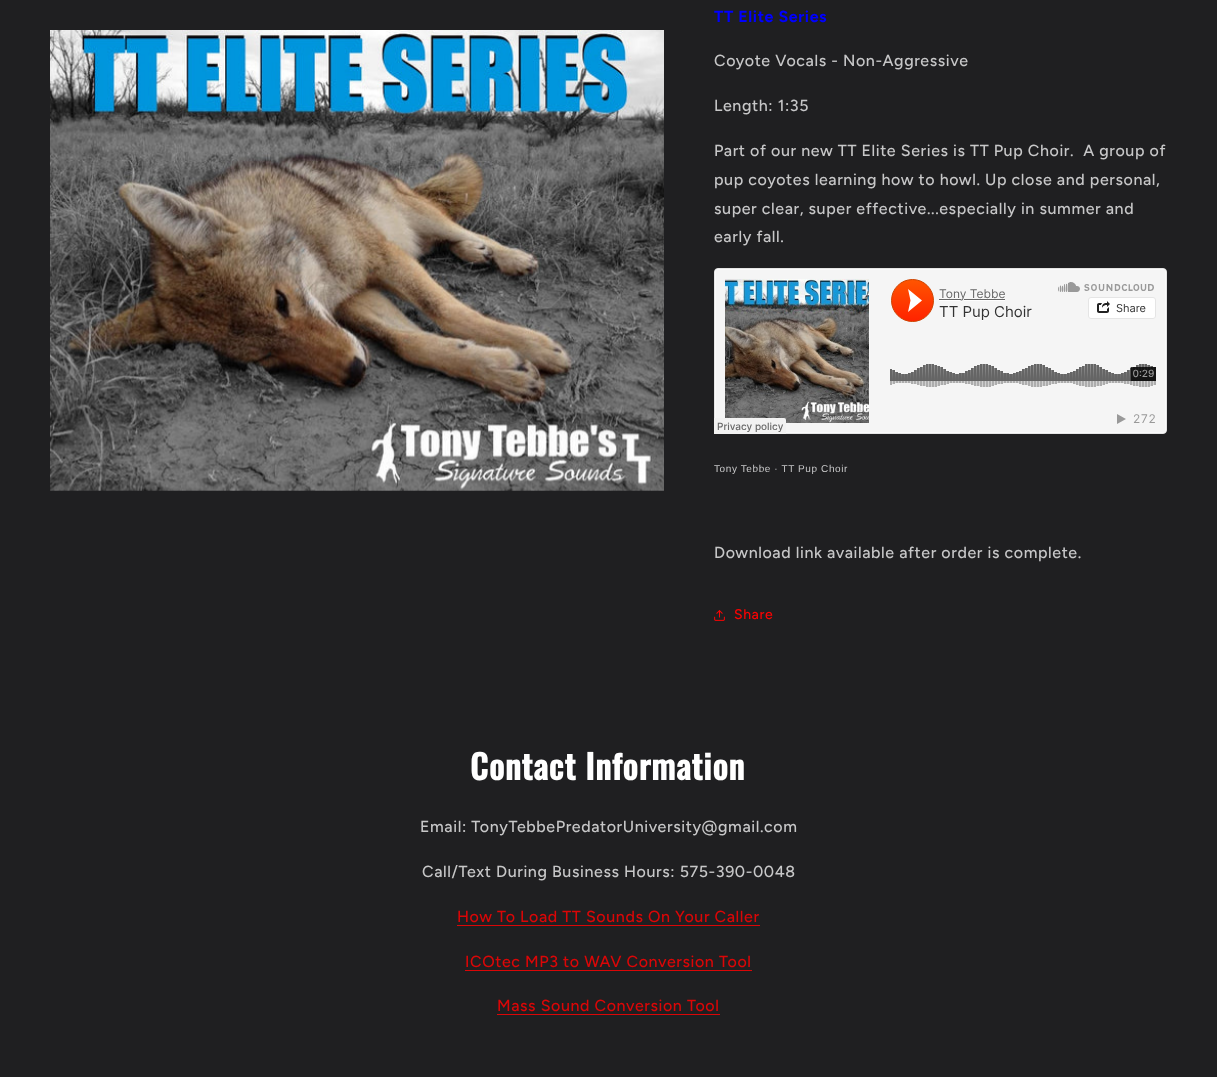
(async () => {
    const canvas = document.querySelector("canvas");
    canvas.width = 1217;
    canvas.height = 1077;
    const context = canvas.getContext("2d");
    context.miterLimit = 4;
    context.fontKerning = "normal";
    function write(s, x, y, font, color) {
        context.font = font;
        context.fillStyle = color;
        context.fillText(s, x, y);
    }
    function block(x, y, w, h, color) {
        context.fillStyle = color;
        context.fillRect(x, y, w, h);
    }
    async function photo(src, x, y, w, h) {
        const img = new Image();
        img.src = src;
        await img.decode();
        context.drawImage(img, x, y, w, h);
    }

    block(0, 0, 1217, 1077, "rgb(31, 31, 33)");
    await photo("media/1.png", 50, 30, 614, 461);
    context.letterSpacing = "0.6px";
    write("TT Elite Series", 714, 22, "bold 16px Figtree", "rgb(0, 0, 255)");
    write("Coyote Vocals - Non-Aggressive", 714, 66, "500 16px Figtree", "rgb(199, 199, 200)");
    write("Length: 1:35", 714, 111, "500 16px Figtree", "rgb(199, 199, 200)");
    write("Part of our new TT Elite Series is TT Pup Choir.  A group of", 714, 156, "500 16px Figtree", "rgb(199, 199, 200)");
    write("pup coyotes learning how to howl. Up close and personal,", 714, 185, "500 16px Figtree", "rgb(199, 199, 200)");
    write("super clear, super effective...especially in summer and", 714, 214, "500 16px Figtree", "rgb(199, 199, 200)");
    write("early fall.", 714, 242, "500 16px Figtree", "rgb(199, 199, 200)");
    await photo("media/2.png", 714, 268, 453, 166);
    write("Tony Tebbe · TT Pup Choir", 714, 472, "10px Liberation Sans", "rgb(199, 199, 200)");
    write("Download link available after order is complete.", 714, 558, "500 16px Figtree", "rgb(199, 199, 200)");
    await photo("media/3.png", 714, 610, 11, 11);
    write("Share", 734, 619, "500 14px Figtree", "rgb(252, 2, 2)");
    context.letterSpacing = "0.8px";
    write("Contact Information", 470, 780, "bold 33.5px Oswald", "rgb(255, 255, 255)");
    context.letterSpacing = "0.6px";
    write("Email: TonyTebbePredatorUniversity@gmail.com", 420, 832, "500 16px Figtree", "rgb(199, 199, 200)");
    write("Call/Text During Business Hours: 575-390-0048", 422, 877, "500 16px Figtree", "rgb(199, 199, 200)");
    write("How To Load TT Sounds On Your Caller", 457, 922, "500 16px Figtree", "rgb(219, 6, 7)");
    block(457, 925, 303, 1, "rgb(219, 6, 7)");
    write("ICOtec MP3 to WAV Conversion Tool", 465, 967, "500 16px Figtree", "rgb(219, 6, 7)");
    block(465, 970, 287, 1, "rgb(219, 6, 7)");
    write("Mass Sound Conversion Tool", 497, 1011, "500 16px Figtree", "rgb(219, 6, 7)");
    block(497, 1014, 223, 1, "rgb(219, 6, 7)");
})();
